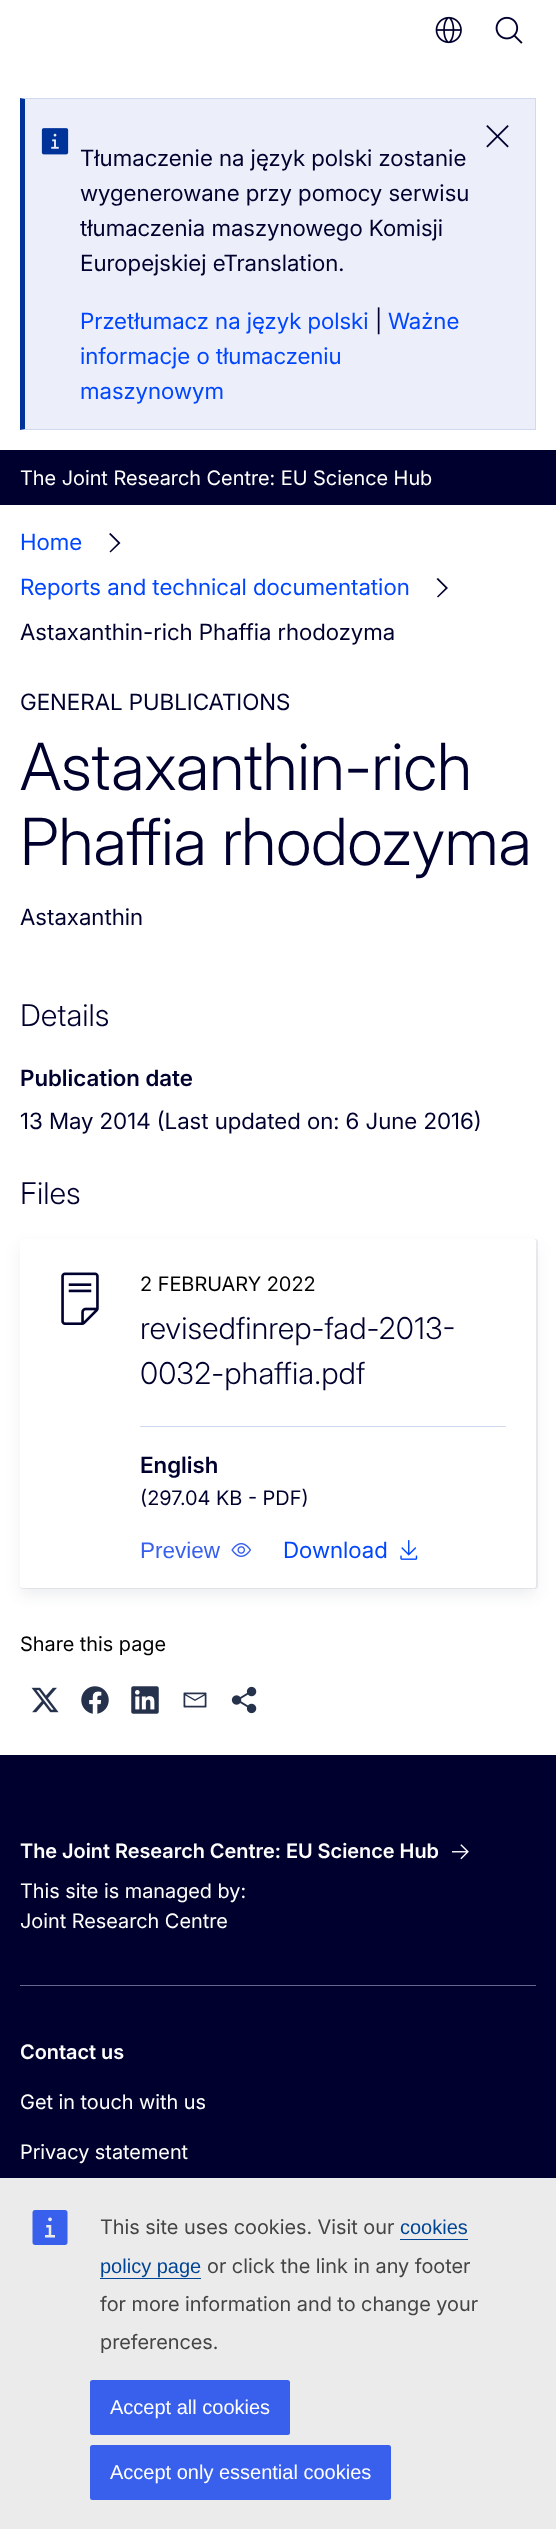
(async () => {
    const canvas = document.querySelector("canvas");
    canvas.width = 556;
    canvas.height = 2529;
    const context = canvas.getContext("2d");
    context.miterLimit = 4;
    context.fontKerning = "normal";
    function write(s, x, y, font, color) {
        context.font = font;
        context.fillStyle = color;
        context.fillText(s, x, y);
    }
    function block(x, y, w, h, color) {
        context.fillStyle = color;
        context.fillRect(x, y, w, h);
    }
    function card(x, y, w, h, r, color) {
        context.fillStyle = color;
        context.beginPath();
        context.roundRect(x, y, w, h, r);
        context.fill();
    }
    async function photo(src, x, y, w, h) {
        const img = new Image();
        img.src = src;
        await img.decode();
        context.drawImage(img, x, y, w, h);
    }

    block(0, 0, 556, 2529, "rgb(255, 255, 255)");
    await photo("media/1.png", 435, 16, 27, 28);
    await photo("media/2.png", 495, 16, 28, 28);
    block(25, 99, 510, 330, "rgb(236, 239, 249)");
    context.fillStyle = "rgb(209, 217, 241)";
    context.beginPath();
    context.moveTo(20, 98);
    context.lineTo(536, 98);
    context.lineTo(535, 99);
    context.lineTo(25, 99);
    context.closePath();
    context.fill();
    block(535, 98, 1, 332, "rgb(209, 217, 241)");
    context.beginPath();
    context.moveTo(536, 430);
    context.lineTo(20, 430);
    context.lineTo(25, 429);
    context.lineTo(535, 429);
    context.closePath();
    context.fill();
    context.fillStyle = "rgb(0, 51, 153)";
    context.beginPath();
    context.moveTo(20, 430);
    context.lineTo(20, 98);
    context.lineTo(25, 99);
    context.lineTo(25, 429);
    context.closePath();
    context.fill();
    await photo("media/3.png", 41, 128, 28, 27);
    await photo("media/4.png", 486, 125, 23, 23);
    write("Tłumaczenie na język polski zostanie", 80, 166, "22.5px Inter", "rgb(0, 0, 46)");
    write("wygenerowane przy pomocy serwisu", 80, 201, "22.5px Inter", "rgb(0, 0, 46)");
    write("tłumaczenia maszynowego Komisji", 80, 236, "22.5px Inter", "rgb(0, 0, 46)");
    write("Europejskiej eTranslation.", 80, 271, "22.5px Inter", "rgb(0, 0, 46)");
    write("Przetłumacz na język polski", 80, 329, "22.5px Inter", "rgb(0, 70, 255)");
    write("|", 375, 329, "22.5px Inter", "rgb(0, 0, 46)");
    write("Ważne", 388, 329, "22.5px Inter", "rgb(0, 70, 255)");
    write("informacje o tłumaczeniu", 80, 364, "22.5px Inter", "rgb(0, 70, 255)");
    write("maszynowym", 80, 399, "22.5px Inter", "rgb(0, 70, 255)");
    block(0, 450, 556, 55, "rgb(0, 0, 46)");
    write("The Joint Research Centre: EU Science Hub", 20, 485, "20px 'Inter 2'", "rgb(255, 255, 255)");
    write("Home", 20, 550, "22.5px Inter", "rgb(0, 70, 255)");
    context.fillStyle = "rgb(0, 0, 46)";
    context.beginPath();
    context.moveTo(110.5, 552.5);
    context.lineTo(109.5, 551.5);
    context.lineTo(118, 543);
    context.lineTo(109, 534);
    context.lineTo(110.5, 533);
    context.lineTo(120.5, 543);
    context.closePath();
    context.fill();
    write("Reports and technical documentation", 20, 595, "22.5px Inter", "rgb(0, 70, 255)");
    context.fillStyle = "rgb(0, 0, 46)";
    context.beginPath();
    context.moveTo(438, 597.5);
    context.lineTo(437, 596.5);
    context.lineTo(445.5, 588);
    context.lineTo(436.5, 579);
    context.lineTo(438, 578);
    context.lineTo(448, 588);
    context.closePath();
    context.fill();
    write("Astaxanthin-rich Phaffia rhodozyma", 20, 640, "22.5px Inter", "rgb(0, 0, 46)");
    write("GENERAL PUBLICATIONS", 20, 710, "22.5px Inter", "rgb(0, 0, 46)");
    write("Astaxanthin-rich", 20, 790, "300 65px Inter", "rgb(0, 0, 46)");
    write("Phaffia rhodozyma", 20, 865, "300 65px Inter", "rgb(0, 0, 46)");
    write("Astaxanthin", 20, 925, "22.5px Inter", "rgb(0, 0, 46)");
    write("Details", 20, 1026, "300 30px 'Inter 2'", "rgb(0, 0, 46)");
    write("Publication date", 20, 1086, "600 22.5px Inter", "rgb(0, 0, 46)");
    write("13 May 2014 (Last updated on: 6 June 2016)", 20, 1129, "22.5px Inter", "rgb(0, 0, 46)");
    write("Files", 20, 1204, "300 30px 'Inter 2'", "rgb(0, 0, 46)");
    context.fillStyle = "rgba(24, 39, 75, 0.08)";
    context.filter = "blur(7.5px)";
    context.beginPath();
    context.roundRect(20, 1246, 516, 349, 2.5);
    context.fill();
    context.filter = "none";
    context.filter = "blur(0.5px)";
    context.beginPath();
    context.roundRect(20, 1239, 518, 350, 3);
    context.fill();
    context.filter = "none";
    card(20, 1239, 516, 349, 2.5, "rgb(255, 255, 255)");
    await photo("media/5.png", 61, 1272, 38, 53);
    write("2 FEBRUARY 2022", 140, 1291, "20px 'Inter 2'", "rgb(0, 0, 0)");
    write("revisedfinrep-fad-2013-", 140, 1339, "300 30px 'Inter 2'", "rgb(0, 0, 46)");
    write("0032-phaffia.pdf", 140, 1384, "300 30px 'Inter 2'", "rgb(0, 0, 46)");
    block(140, 1426, 366, 1, "rgb(209, 217, 241)");
    write("English", 140, 1473, "600 22.5px Inter", "rgb(0, 0, 46)");
    write("(297.04 KB - PDF)", 140, 1505, "20px 'Inter 2'", "rgb(0, 0, 46)");
    write("Preview", 140, 1558, "22.5px Liberation Sans", "rgb(56, 96, 237)");
    await photo("media/6.png", 231, 1543, 20, 14);
    write("Download", 283, 1558, "22.5px Inter", "rgb(0, 70, 255)");
    await photo("media/7.png", 400, 1540, 18, 20);
    write("Share this page", 20, 1651, "20px 'Inter 2'", "rgb(0, 0, 0)");
    await photo("media/8.png", 31, 1687, 28, 26);
    await photo("media/9.png", 81, 1686, 28, 28);
    await photo("media/10.png", 131, 1686, 28, 28);
    await photo("media/11.png", 183, 1692, 24, 16);
    await photo("media/12.png", 231, 1686, 26, 28);
    block(0, 1755, 556, 423, "rgb(0, 0, 46)");
    write("The Joint Research Centre: EU Science Hub", 20, 1858, "600 20px 'Inter 2'", "rgb(255, 255, 255)");
    await photo("media/13.png", 452, 1844, 17, 16);
    write("This site is managed by:", 20, 1898, "20px 'Inter 2'", "rgb(255, 255, 255)");
    write("Joint Research Centre", 20, 1928, "20px 'Inter 2'", "rgb(255, 255, 255)");
    block(20, 1985, 516, 1, "rgb(100, 104, 140)");
    write("Contact us", 20, 2059, "600 20px 'Inter 2'", "rgb(255, 255, 255)");
    write("Get in touch with us", 20, 2109, "20px 'Inter 2'", "rgb(255, 255, 255)");
    write("Privacy statement", 20, 2159, "20px 'Inter 2'", "rgb(255, 255, 255)");
    block(0, 2178, 556, 351, "rgb(235, 235, 235)");
    await photo("media/14.png", 32, 2210, 36, 35);
    write("This site uses cookies. Visit our", 100, 2234, "20px 'Inter 2'", "rgb(68, 68, 68)");
    write("cookies", 400, 2234, "20px Liberation Sans", "rgb(0, 68, 148)");
    block(400, 2239, 68, 1, "rgb(0, 68, 148)");
    write("policy page", 100, 2273, "20px Liberation Sans", "rgb(0, 68, 148)");
    block(100, 2278, 101, 1, "rgb(0, 68, 148)");
    write("or click the link in any footer", 207, 2273, "20px 'Inter 2'", "rgb(68, 68, 68)");
    write("for more information and to change your", 100, 2311, "20px 'Inter 2'", "rgb(68, 68, 68)");
    write("preferences.", 100, 2349, "20px 'Inter 2'", "rgb(68, 68, 68)");
    card(90, 2380, 200, 55, 2.5, "rgb(56, 96, 237)");
    write("Accept all cookies", 110, 2414, "20px Liberation Sans", "rgb(255, 255, 255)");
    card(90, 2445, 301, 55, 2.5, "rgb(56, 96, 237)");
    write("Accept only essential cookies", 110, 2479, "20px Liberation Sans", "rgb(255, 255, 255)");
})();
